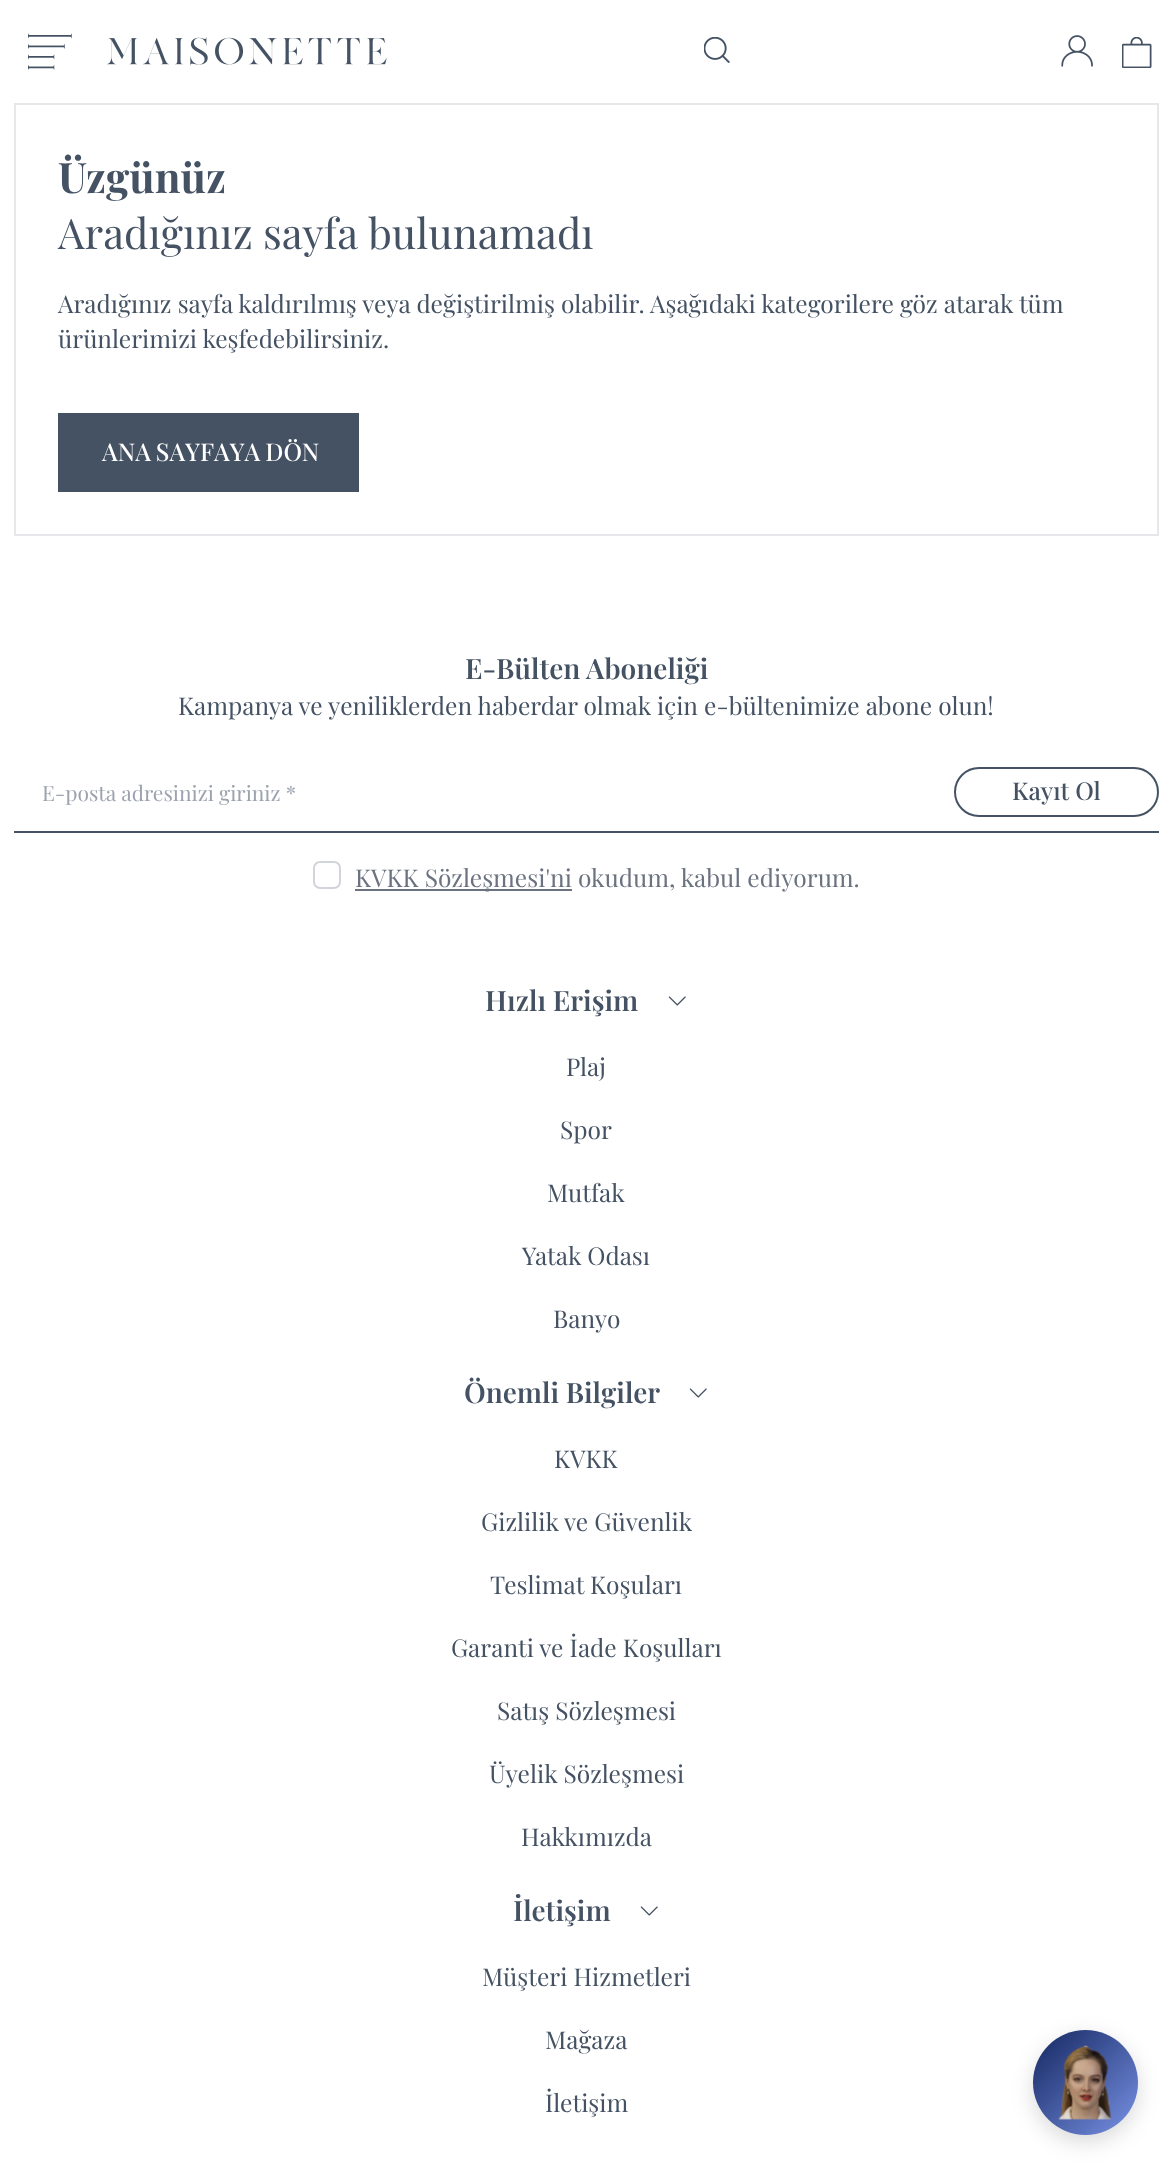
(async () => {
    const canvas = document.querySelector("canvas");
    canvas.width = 1171;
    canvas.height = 2170;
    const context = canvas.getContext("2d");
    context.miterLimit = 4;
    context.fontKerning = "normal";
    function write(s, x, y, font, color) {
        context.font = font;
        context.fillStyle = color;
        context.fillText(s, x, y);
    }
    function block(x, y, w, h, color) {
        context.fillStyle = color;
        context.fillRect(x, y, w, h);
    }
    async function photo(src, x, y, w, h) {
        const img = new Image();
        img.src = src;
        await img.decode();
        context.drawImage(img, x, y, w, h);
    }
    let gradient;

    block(0, 0, 1171, 2170, "rgb(255, 255, 255)");
    await photo("media/1.png", 28, 33, 44, 37);
    await photo("media/2.png", 107, 37, 280, 29);
    await photo("media/3.png", 704, 37, 26, 26);
    await photo("media/4.png", 1061, 35, 32, 32);
    await photo("media/5.png", 1122, 37, 30, 31);
    context.strokeStyle = "rgb(229, 231, 235)";
    context.lineWidth = 2;
    context.strokeRect(15, 104, 1143, 431);
    write("Üzgünüz", 58, 193, "bold 42px Playfair Display", "rgb(68, 82, 99)");
    write("Aradığınız sayfa bulunamadı", 58, 249, "42px Playfair Display", "rgb(68, 82, 99)");
    write("Aradığınız sayfa kaldırılmış veya değiştirilmiş olabilir. Aşağıdaki kategorilere göz atarak tüm", 58, 313, "24.5px Playfair Display", "rgb(68, 82, 99)");
    write("ürünlerimizi keşfedebilirsiniz.", 58, 348, "24.5px Playfair Display", "rgb(68, 82, 99)");
    block(58, 413, 301, 79, "rgb(68, 82, 99)");
    context.wordSpacing = "-1px";
    write("ANA SAYFAYA DÖN", 102, 461, "500 24.5px Playfair Display", "rgb(255, 255, 255)");
    context.wordSpacing = "0px";
    write("E-Bülten Aboneliği", 465, 679, "600 28px Playfair Display", "rgb(68, 82, 99)");
    write("Kampanya ve yeniliklerden haberdar olmak için e-bültenimize abone olun!", 178, 715, "24.5px Playfair Display", "rgb(68, 82, 99)");
    block(14, 831, 1145, 2, "rgb(68, 82, 99)");
    write("E-posta adresinizi giriniz *", 42, 801, "21px Playfair Display", "rgb(156, 163, 175)");
    context.beginPath();
    context.roundRect(955, 768, 203, 48, 24);
    context.strokeStyle = "rgb(68, 82, 99)";
    context.stroke();
    write("Kayıt Ol", 1012, 800, "500 24.5px Playfair Display", "rgb(68, 82, 99)");
    context.beginPath();
    context.roundRect(314, 862, 26, 26, 6);
    context.strokeStyle = "rgb(209, 213, 219)";
    context.stroke();
    block(355, 889, 217, 2, "rgb(107, 114, 128)");
    write("KVKK Sözleşmesi'ni okudum, kabul ediyorum.", 355, 887, "24.5px Playfair Display", "rgb(107, 114, 128)");
    write("Hızlı Erişim", 485, 1011, "600 28px Playfair Display", "rgb(68, 82, 99)");
    await photo("media/6.png", 668, 996, 18, 10);
    write("Plaj", 566, 1076, "24.5px Playfair Display", "rgb(68, 82, 99)");
    write("Spor", 560, 1139, "24.5px Playfair Display", "rgb(68, 82, 99)");
    write("Mutfak", 547, 1202, "24.5px Playfair Display", "rgb(68, 82, 99)");
    write("Yatak Odası", 522, 1265, "24.5px Playfair Display", "rgb(68, 82, 99)");
    write("Banyo", 553, 1328, "24.5px Playfair Display", "rgb(68, 82, 99)");
    write("Önemli Bilgiler", 464, 1403, "600 28px Playfair Display", "rgb(68, 82, 99)");
    await photo("media/6.png", 689, 1388, 18, 10);
    write("KVKK", 554, 1468, "24.5px Playfair Display", "rgb(68, 82, 99)");
    write("Gizlilik ve Güvenlik", 481, 1531, "24.5px Playfair Display", "rgb(68, 82, 99)");
    write("Teslimat Koşuları", 490, 1594, "24.5px Playfair Display", "rgb(68, 82, 99)");
    write("Garanti ve İade Koşulları", 451, 1657, "24.5px Playfair Display", "rgb(68, 82, 99)");
    write("Satış Sözleşmesi", 497, 1720, "24.5px Playfair Display", "rgb(68, 82, 99)");
    write("Üyelik Sözleşmesi", 489, 1783, "24.5px Playfair Display", "rgb(68, 82, 99)");
    write("Hakkımızda", 521, 1846, "24.5px Playfair Display", "rgb(68, 82, 99)");
    write("İletişim", 513, 1921, "600 28px Playfair Display", "rgb(68, 82, 99)");
    await photo("media/6.png", 640, 1906, 18, 10);
    write("Müşteri Hizmetleri", 482, 1986, "24.5px Playfair Display", "rgb(68, 82, 99)");
    write("Mağaza", 545, 2049, "24.5px Playfair Display", "rgb(68, 82, 99)");
    write("İletişim", 545, 2112, "24.5px Playfair Display", "rgb(68, 82, 99)");
    context.fillStyle = "rgba(0, 0, 0, 0.15)";
    context.filter = "blur(10.5px)";
    context.beginPath();
    context.roundRect(1033, 2037, 105, 105, 52.5);
    context.fill();
    context.filter = "none";
    gradient = context.createLinearGradient(1033, 2030, 1138, 2135);
    gradient.addColorStop(0, "rgb(20, 38, 96)");
    gradient.addColorStop(1, "rgb(120, 146, 229)");
    context.fillStyle = gradient;
    context.beginPath();
    context.arc(1085.5, 2082.5, 52.5, 0, Math.PI * 2);
    context.fill();
    await photo("media/7.png", 1058, 2045, 54, 75);
})();
